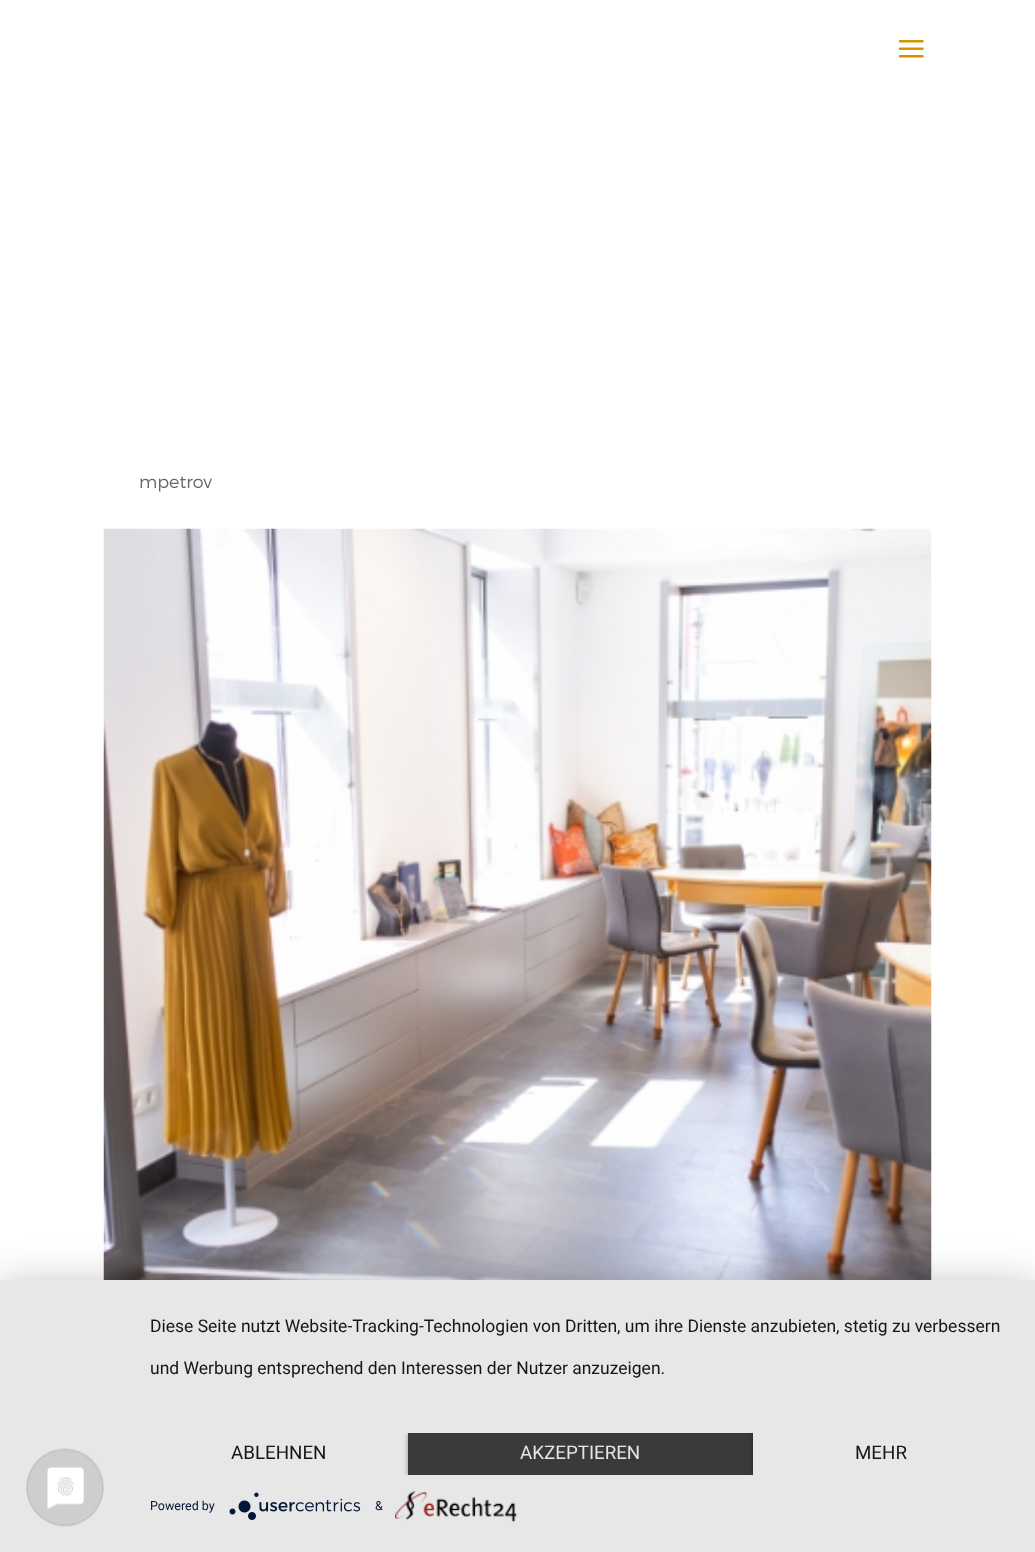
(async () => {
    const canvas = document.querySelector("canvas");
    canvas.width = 1035;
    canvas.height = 1552;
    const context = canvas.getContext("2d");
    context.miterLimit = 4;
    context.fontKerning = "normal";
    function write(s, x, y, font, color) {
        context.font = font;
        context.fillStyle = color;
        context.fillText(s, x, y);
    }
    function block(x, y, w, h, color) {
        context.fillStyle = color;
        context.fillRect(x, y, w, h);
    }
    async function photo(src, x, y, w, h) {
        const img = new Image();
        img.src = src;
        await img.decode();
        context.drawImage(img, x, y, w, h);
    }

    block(0, 0, 1035, 1552, "rgb(255, 255, 255)");
    await photo("media/1.png", 898, 40, 26, 18);
    write("mpetrov", 139, 488, "300 17.5px Montserrat", "rgb(102, 102, 102)");
    await photo("media/2.png", 103, 528, 829, 752);
    context.fillStyle = "rgba(0, 0, 0, 0.3)";
    context.filter = "blur(22.5px)";
    context.beginPath();
    context.rect(0, 1288, 1035, 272);
    context.fill();
    context.filter = "none";
    block(0, 1280, 1035, 272, "rgb(231, 231, 231)");
    await photo("media/3.png", 26, 1448, 78, 79);
    write("Diese Seite nutzt Website-Tracking-Technologien von Dritten, um ihre Dienste anzubieten, stetig zu verbessern", 150, 1332, "17.5px Roboto", "rgb(22, 22, 22)");
    write("und Werbung entsprechend den Interessen der Nutzer anzuzeigen.", 150, 1374, "17.5px Roboto", "rgb(22, 22, 22)");
    write("ABLEHNEN", 231, 1459, "18.75px Roboto", "rgb(22, 22, 22)");
    context.save();
    context.beginPath();
    context.rect(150, 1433, 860, 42);
    context.clip();
    context.fillStyle = "rgba(0, 0, 0, 0.4)";
    context.filter = "blur(2.5px)";
    context.beginPath();
    context.rect(408, 1434, 345, 42);
    context.fill();
    context.filter = "none";
    context.restore();
    block(408, 1433, 345, 42, "rgb(58, 58, 58)");
    write("AKZEPTIEREN", 520, 1459, "18.75px Roboto", "rgb(230, 230, 230)");
    context.save();
    context.beginPath();
    context.rect(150, 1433, 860, 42);
    context.clip();
    context.fillStyle = "rgba(0, 0, 0, 0.4)";
    context.filter = "blur(2.5px)";
    context.beginPath();
    context.rect(753, 1434, 257, 42);
    context.fill();
    context.filter = "none";
    context.restore();
    block(753, 1433, 257, 42, "rgb(231, 231, 231)");
    write("MEHR", 855, 1459, "18.75px Roboto", "rgb(22, 22, 22)");
    write("Powered by", 150, 1510, "12.5px Roboto", "rgb(2, 24, 54)");
    await photo("media/4.png", 229, 1492, 132, 28);
    write("&", 375, 1510, "12.5px Roboto", "rgb(2, 24, 54)");
    await photo("media/5.png", 395, 1491, 122, 31);
})();
